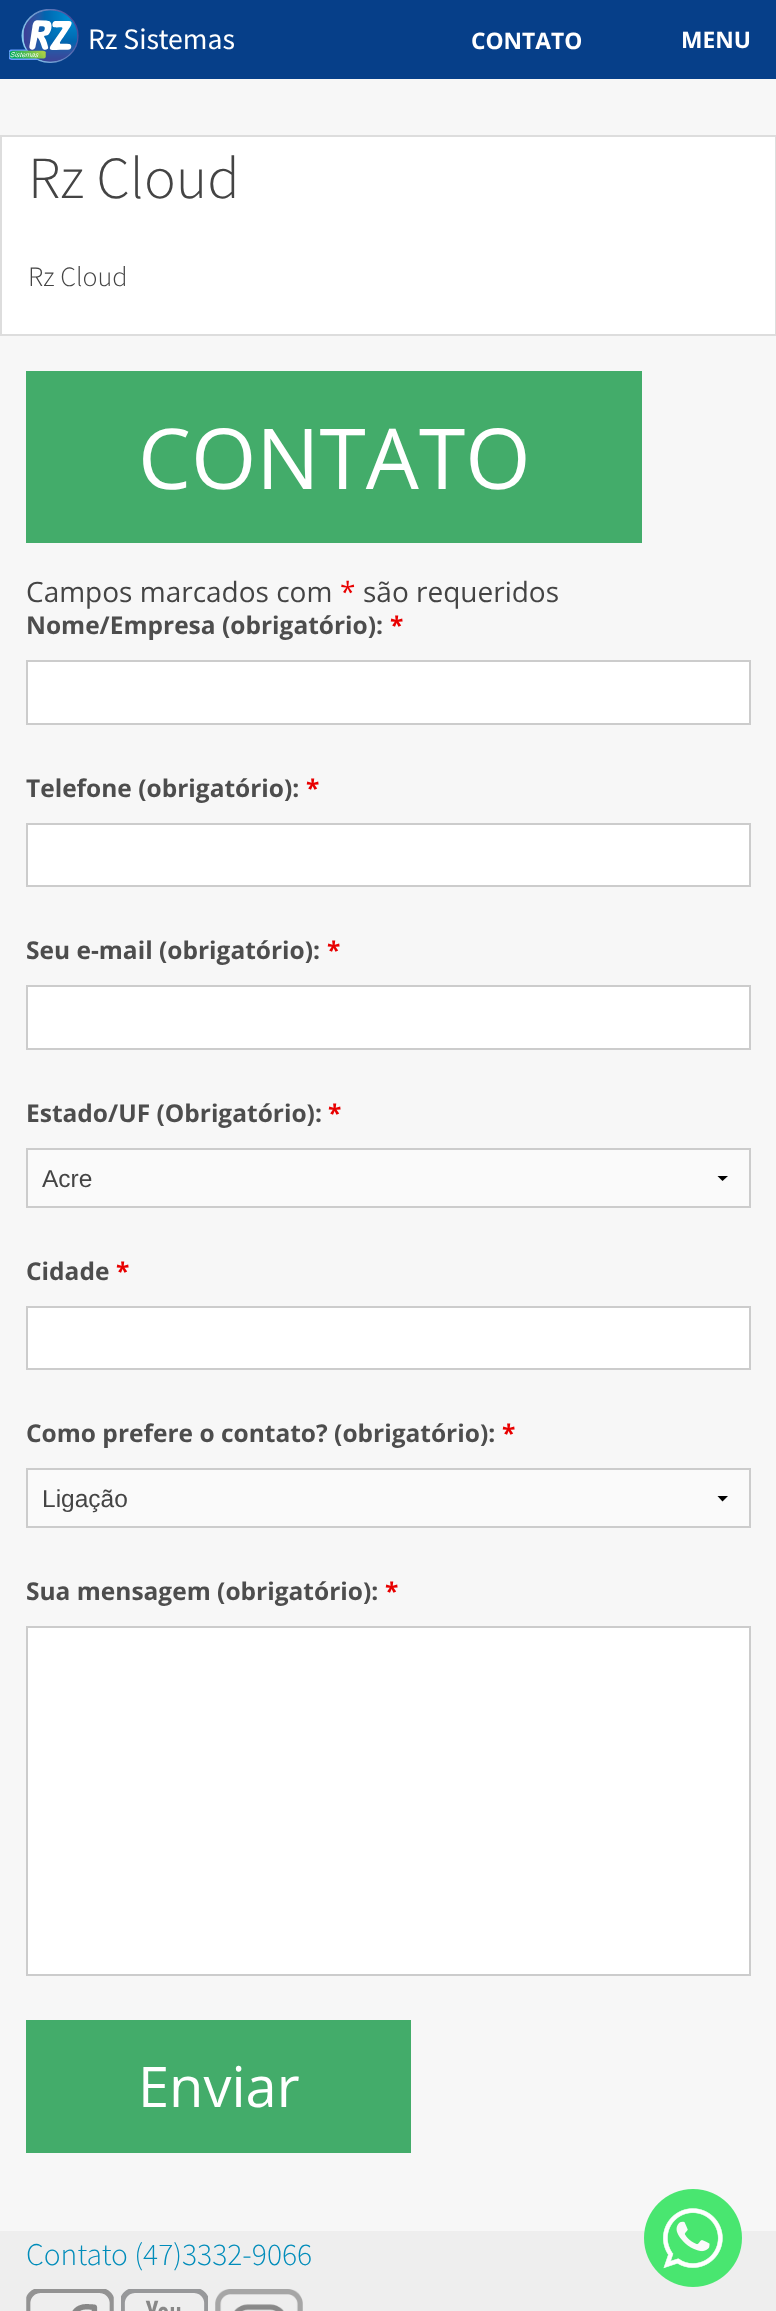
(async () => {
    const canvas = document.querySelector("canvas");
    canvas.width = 776;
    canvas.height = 2311;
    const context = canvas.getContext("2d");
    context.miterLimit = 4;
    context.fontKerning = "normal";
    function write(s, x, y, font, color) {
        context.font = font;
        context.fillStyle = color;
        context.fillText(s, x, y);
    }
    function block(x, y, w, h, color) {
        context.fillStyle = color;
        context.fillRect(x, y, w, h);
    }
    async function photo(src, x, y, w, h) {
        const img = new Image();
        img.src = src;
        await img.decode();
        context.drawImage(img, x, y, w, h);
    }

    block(0, 0, 776, 2311, "rgb(247, 247, 247)");
    block(0, 0, 776, 79, "rgb(6, 63, 137)");
    await photo("media/1.png", 9, 9, 70, 54);
    write("Rz Sistemas", 88, 49, "29.75px Source Sans Pro", "rgb(255, 255, 255)");
    write("CONTATO", 471, 49, "bold 22.75px Open Sans", "rgb(255, 255, 255)");
    write("MENU", 681, 48, "bold 22.75px Open Sans", "rgb(255, 255, 255)");
    context.beginPath();
    context.rect(1, 136, 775, 199);
    context.fill();
    context.strokeStyle = "rgb(221, 221, 221)";
    context.lineWidth = 2;
    context.stroke();
    write("Rz Cloud", 28, 198, "300 59.5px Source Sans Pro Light", "rgb(68, 68, 68)");
    write("Rz Cloud", 28, 286, "300 28px Source Sans Pro Light", "rgb(68, 68, 68)");
    block(26, 371, 616, 172, "rgb(67, 172, 106)");
    write("CONTATO", 138, 489, "84px Open Sans", "rgb(255, 255, 255)");
    write("Campos marcados com", 26, 602, "28px Open Sans", "rgb(68, 68, 68)");
    write("*", 340, 602, "28px Open Sans", "rgb(232, 0, 0)");
    write("são requeridos", 363, 602, "28px Open Sans", "rgb(68, 68, 68)");
    write("Nome/Empresa (obrigatório):", 26, 634, "bold 24.5px Open Sans", "rgb(77, 77, 77)");
    write("*", 390, 634, "bold 24.5px Open Sans", "rgb(232, 0, 0)");
    context.fillStyle = "rgb(255, 255, 255)";
    context.beginPath();
    context.rect(27, 661, 723, 63);
    context.fill();
    context.strokeStyle = "rgb(204, 204, 204)";
    context.stroke();
    write("Telefone (obrigatório):", 26, 797, "bold 24.5px Open Sans", "rgb(77, 77, 77)");
    write("*", 306, 797, "bold 24.5px Open Sans", "rgb(232, 0, 0)");
    context.fillStyle = "rgb(255, 255, 255)";
    context.beginPath();
    context.rect(27, 824, 723, 62);
    context.fill();
    context.stroke();
    write("Seu e-mail (obrigatório):", 26, 959, "bold 24.5px Open Sans", "rgb(77, 77, 77)");
    write("*", 327, 959, "bold 24.5px Open Sans", "rgb(232, 0, 0)");
    context.fillStyle = "rgb(255, 255, 255)";
    context.beginPath();
    context.rect(27, 986, 723, 63);
    context.fill();
    context.stroke();
    write("Estado/UF (Obrigatório):", 26, 1122, "bold 24.5px Open Sans", "rgb(77, 77, 77)");
    write("*", 328, 1122, "bold 24.5px Open Sans", "rgb(232, 0, 0)");
    block(28, 1150, 721, 56, "rgb(250, 250, 250)");
    context.fillStyle = "rgb(0, 0, 0)";
    context.beginPath();
    context.moveTo(728, 1176);
    context.lineTo(722.5, 1181);
    context.lineTo(717.5, 1176);
    context.closePath();
    context.fill();
    context.strokeRect(27, 1149, 723, 58);
    write("Acre", 42, 1187, "24.5px Liberation Sans", "rgb(68, 68, 68)");
    write("Cidade", 26, 1280, "bold 24.5px Open Sans", "rgb(77, 77, 77)");
    write("*", 116, 1280, "bold 24.5px Open Sans", "rgb(232, 0, 0)");
    context.fillStyle = "rgb(255, 255, 255)";
    context.beginPath();
    context.rect(27, 1307, 723, 62);
    context.fill();
    context.stroke();
    write("Como prefere o contato? (obrigatório):", 26, 1442, "bold 24.5px Open Sans", "rgb(77, 77, 77)");
    write("*", 502, 1442, "bold 24.5px Open Sans", "rgb(232, 0, 0)");
    block(28, 1470, 721, 56, "rgb(250, 250, 250)");
    context.fillStyle = "rgb(0, 0, 0)";
    context.beginPath();
    context.moveTo(728, 1496);
    context.lineTo(722.5, 1501.5);
    context.lineTo(717.5, 1496);
    context.closePath();
    context.fill();
    context.strokeRect(27, 1469, 723, 58);
    write("Ligação", 42, 1507, "24.5px Liberation Sans", "rgb(68, 68, 68)");
    write("Sua mensagem (obrigatório):", 26, 1600, "bold 24.5px Open Sans", "rgb(77, 77, 77)");
    write("*", 385, 1600, "bold 24.5px Open Sans", "rgb(232, 0, 0)");
    context.fillStyle = "rgb(255, 255, 255)";
    context.beginPath();
    context.rect(27, 1627, 723, 348);
    context.fill();
    context.stroke();
    block(26, 2020, 385, 133, "rgb(67, 172, 106)");
    write("Enviar", 138, 2107, "56px Open Sans", "rgb(255, 255, 255)");
    block(0, 2231, 776, 80, "rgb(238, 238, 238)");
    write("Contato (47)3332-9066", 26, 2265, "300 31.5px Source Sans Pro Light", "rgb(0, 140, 186)");
    await photo("media/2.png", 26, 2289, 88, 22);
    await photo("media/3.png", 121, 2289, 87, 22);
    await photo("media/4.png", 215, 2289, 88, 22);
    await photo("media/5.png", 644, 2189, 98, 98);
})();
